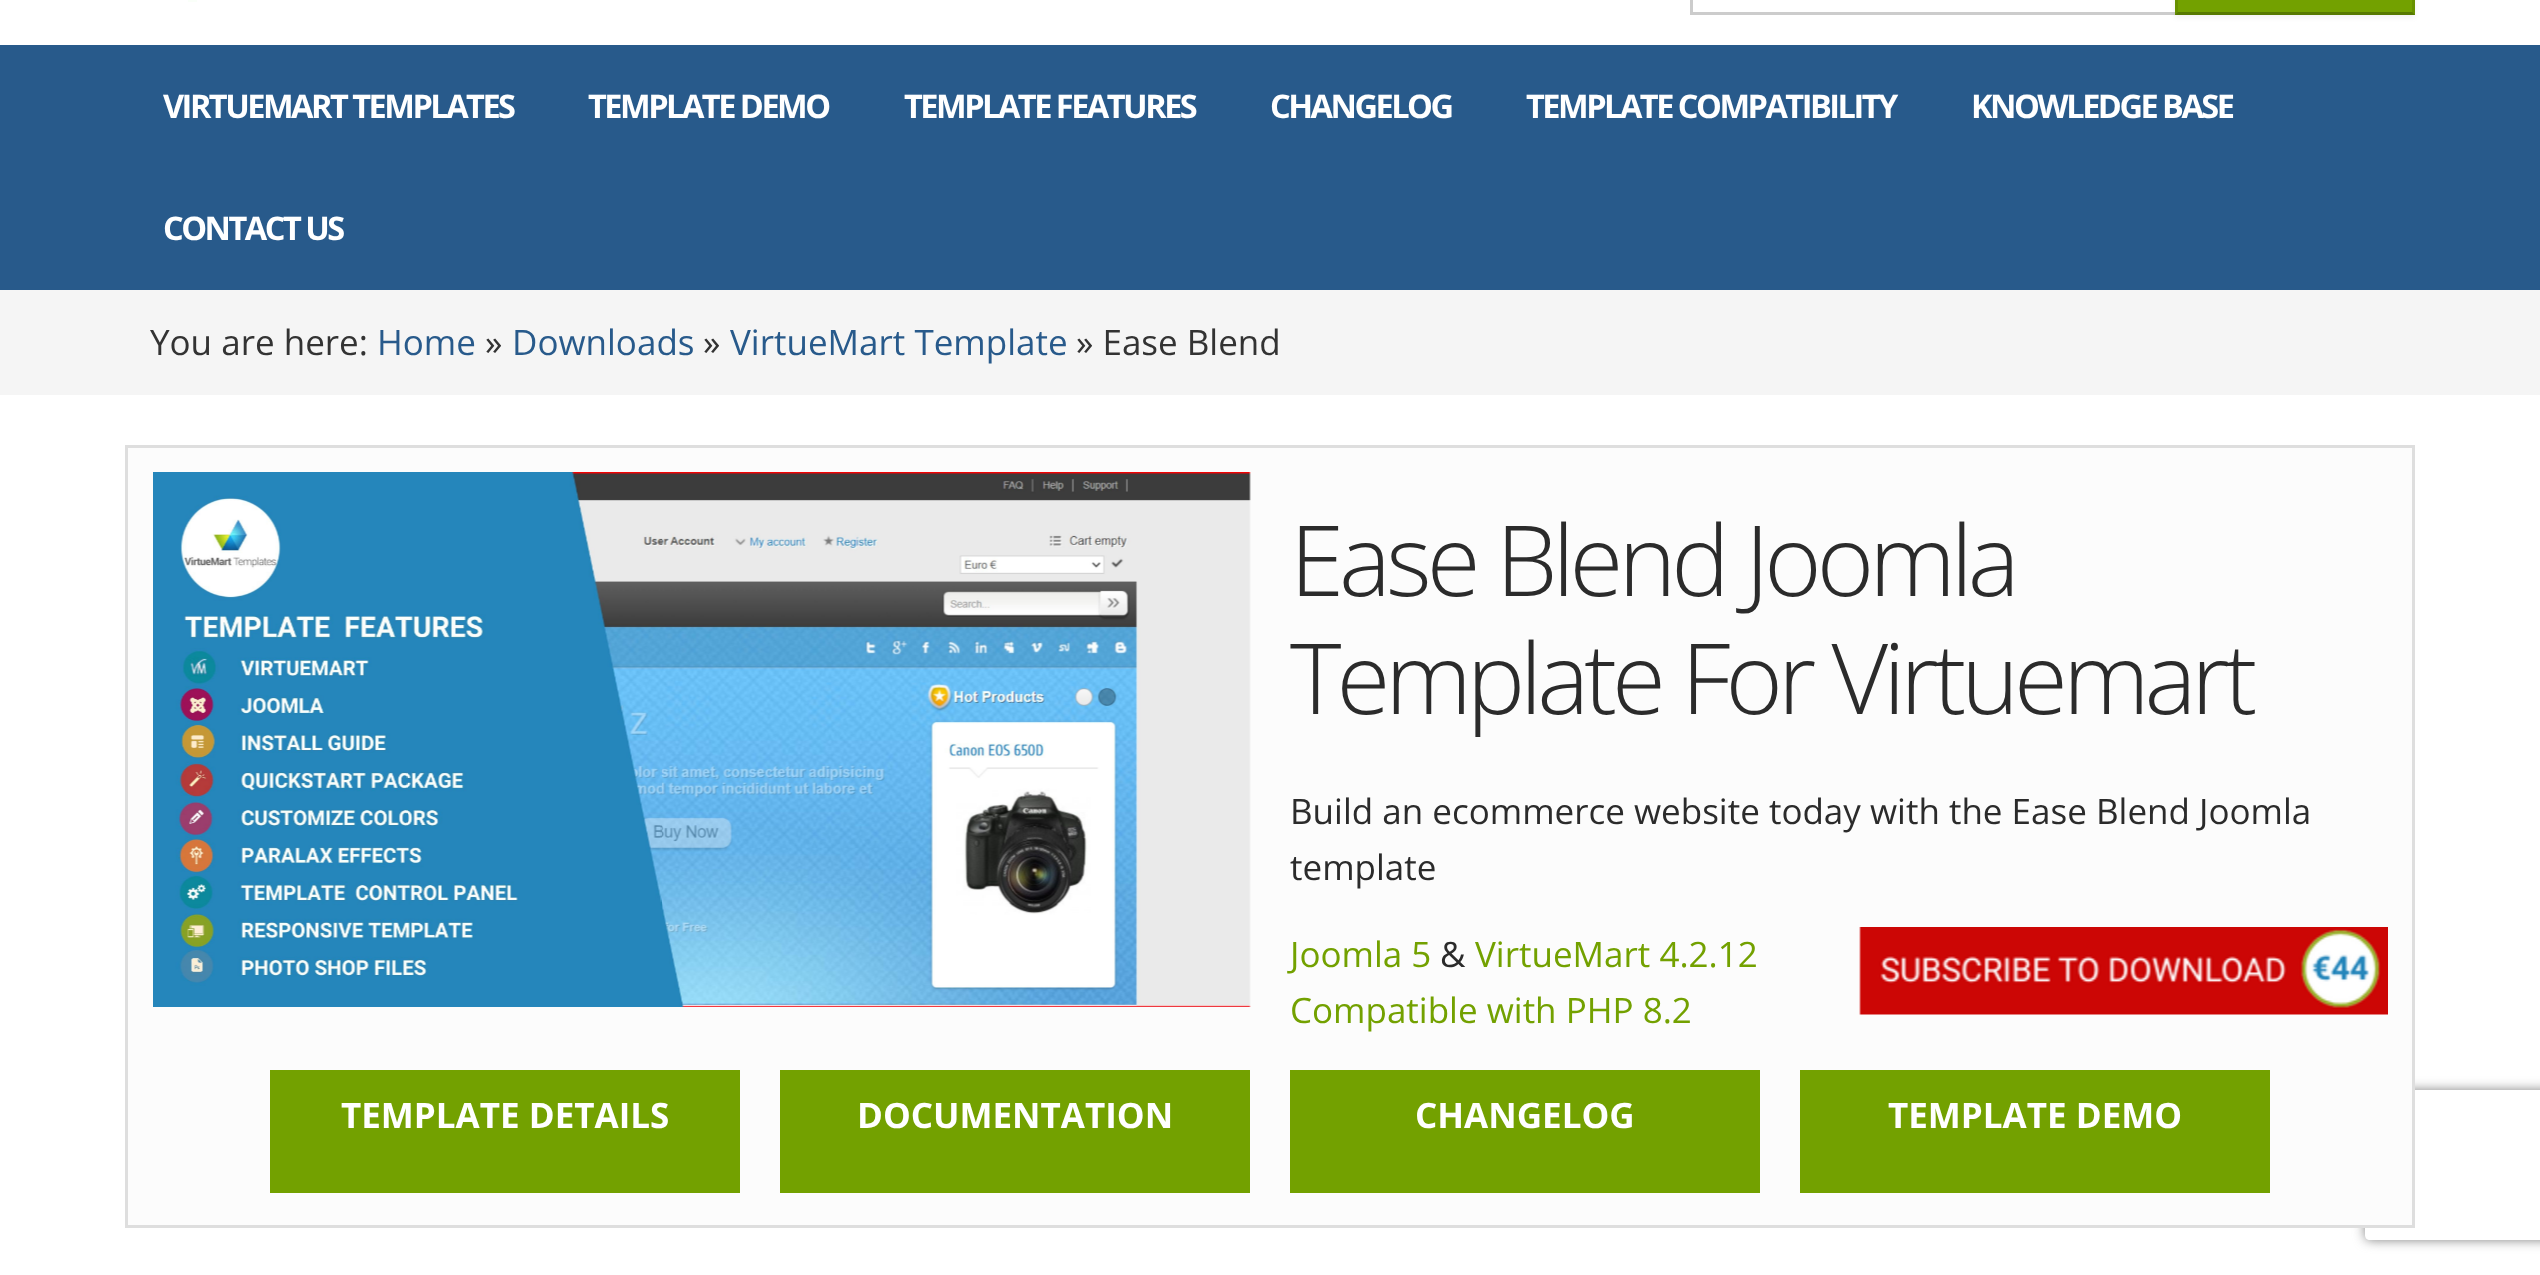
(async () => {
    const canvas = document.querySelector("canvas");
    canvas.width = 2540;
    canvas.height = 1275;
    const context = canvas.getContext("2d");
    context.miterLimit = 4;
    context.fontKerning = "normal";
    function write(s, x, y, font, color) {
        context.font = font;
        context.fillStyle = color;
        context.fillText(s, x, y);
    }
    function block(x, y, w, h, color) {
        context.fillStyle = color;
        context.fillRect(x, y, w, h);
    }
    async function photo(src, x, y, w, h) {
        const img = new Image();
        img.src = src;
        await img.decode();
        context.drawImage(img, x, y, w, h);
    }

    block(0, 0, 2540, 1275, "rgb(255, 255, 255)");
    block(188, 0, 9, 2, "rgb(250, 255, 249)");
    context.strokeStyle = "rgb(204, 204, 204)";
    context.lineWidth = 3;
    context.strokeRect(1691.5, -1.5, 485, 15);
    context.fillStyle = "rgba(0, 0, 0, 0.05)";
    context.filter = "blur(2.5px)";
    context.beginPath();
    context.rect(2175, -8, 240, 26);
    context.fill();
    context.filter = "none";
    block(2175, 0, 240, 15, "rgb(115, 161, 0)");
    context.fillStyle = "rgb(104, 145, 0)";
    context.beginPath();
    context.moveTo(2415, -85);
    context.lineTo(2415, 15);
    context.lineTo(2412, 12);
    context.lineTo(2412, -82);
    context.closePath();
    context.fill();
    context.fillStyle = "rgba(0, 0, 0, 0.25)";
    context.beginPath();
    context.moveTo(2415, 15);
    context.lineTo(2175, 15);
    context.lineTo(2178, 12);
    context.lineTo(2412, 12);
    context.closePath();
    context.fill();
    context.fillStyle = "rgba(0, 0, 0, 0.1)";
    context.beginPath();
    context.moveTo(2175, 15);
    context.lineTo(2175, -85);
    context.lineTo(2178, -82);
    context.lineTo(2178, 12);
    context.closePath();
    context.fill();
    block(0, 45, 2540, 245, "rgb(40, 90, 139)");
    context.letterSpacing = "-2.5px";
    write("VIRTUEMART TEMPLATES", 163, 118, "bold 32.5px Open Sans", "rgb(255, 255, 255)");
    write("TEMPLATE DEMO", 588, 118, "bold 32.5px Open Sans", "rgb(255, 255, 255)");
    write("TEMPLATE FEATURES", 904, 118, "bold 32.5px Open Sans", "rgb(255, 255, 255)");
    write("CHANGELOG", 1270, 118, "bold 32.5px Open Sans", "rgb(255, 255, 255)");
    write("TEMPLATE COMPATIBILITY", 1526, 118, "bold 32.5px Open Sans", "rgb(255, 255, 255)");
    write("KNOWLEDGE BASE", 1971, 118, "bold 32.5px Open Sans", "rgb(255, 255, 255)");
    write("CONTACT US", 163, 240, "bold 32.5px Open Sans", "rgb(255, 255, 255)");
    block(0, 290, 2540, 105, "rgb(245, 245, 245)");
    context.letterSpacing = "0px";
    write("You are here:", 150, 355, "35px Open Sans", "rgb(51, 51, 51)");
    write("Home", 377, 355, "35px Open Sans", "rgb(40, 90, 139)");
    write("»", 485, 355, "35px Open Sans", "rgb(51, 51, 51)");
    write("Downloads", 512, 355, "35px Open Sans", "rgb(40, 90, 139)");
    write("»", 703, 355, "35px Open Sans", "rgb(51, 51, 51)");
    write("VirtueMart Template", 730, 355, "35px Open Sans", "rgb(40, 90, 139)");
    write("» Ease Blend", 1076, 355, "35px Open Sans", "rgb(51, 51, 51)");
    context.save();
    context.beginPath();
    context.moveTo(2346, 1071);
    context.lineTo(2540, 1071);
    context.lineTo(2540, 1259);
    context.lineTo(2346, 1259);
    context.closePath();
    context.moveTo(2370, 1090);
    context.lineTo(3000, 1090);
    context.bezierCurveTo(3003, 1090, 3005, 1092, 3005, 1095);
    context.lineTo(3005, 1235);
    context.bezierCurveTo(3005, 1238, 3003, 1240, 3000, 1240);
    context.lineTo(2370, 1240);
    context.bezierCurveTo(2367, 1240, 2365, 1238, 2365, 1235);
    context.lineTo(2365, 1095);
    context.bezierCurveTo(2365, 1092, 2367, 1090, 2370, 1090);
    context.closePath();
    context.clip("evenodd");
    context.fillStyle = "rgb(128, 128, 128)";
    context.filter = "blur(6px)";
    context.beginPath();
    context.roundRect(2365, 1090, 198, 150, 5);
    context.fill();
    context.filter = "none";
    context.restore();
    context.fillStyle = "rgb(252, 252, 252)";
    context.beginPath();
    context.rect(126.5, 446.5, 2287, 780);
    context.fill();
    context.strokeStyle = "rgb(222, 222, 222)";
    context.stroke();
    await photo("media/1.png", 153, 472, 1098, 535);
    context.letterSpacing = "-5px";
    write("Ease Blend Joomla", 1290, 596, "300 98px Open Sans", "rgb(43, 43, 43)");
    write("Template For Virtuemart", 1290, 714, "300 98px Open Sans", "rgb(43, 43, 43)");
    context.letterSpacing = "0px";
    write("Build an ecommerce website today with the Ease Blend Joomla", 1290, 824, "35px Open Sans", "rgb(43, 43, 43)");
    write("template", 1290, 880, "35px Open Sans", "rgb(43, 43, 43)");
    write("Joomla 5", 1290, 967, "35px Open Sans", "rgb(115, 161, 0)");
    write("&", 1440, 967, "35px Open Sans", "rgb(43, 43, 43)");
    write("VirtueMart 4.2.12", 1475, 967, "35px Open Sans", "rgb(115, 161, 0)");
    write("Compatible with PHP 8.2", 1290, 1023, "35px Open Sans", "rgb(115, 161, 0)");
    await photo("media/2.png", 1859, 927, 529, 88);
    block(270, 1070, 470, 123, "rgb(115, 161, 0)");
    write("TEMPLATE DETAILS", 341, 1128, "bold 35px Open Sans", "rgb(255, 255, 255)");
    block(780, 1070, 470, 123, "rgb(115, 161, 0)");
    write("DOCUMENTATION", 857, 1128, "bold 35px Open Sans", "rgb(255, 255, 255)");
    block(1290, 1070, 470, 123, "rgb(115, 161, 0)");
    write("CHANGELOG", 1415, 1128, "bold 35px Open Sans", "rgb(255, 255, 255)");
    block(1800, 1070, 470, 123, "rgb(115, 161, 0)");
    write("TEMPLATE DEMO", 1888, 1128, "bold 35px Open Sans", "rgb(255, 255, 255)");
})();
